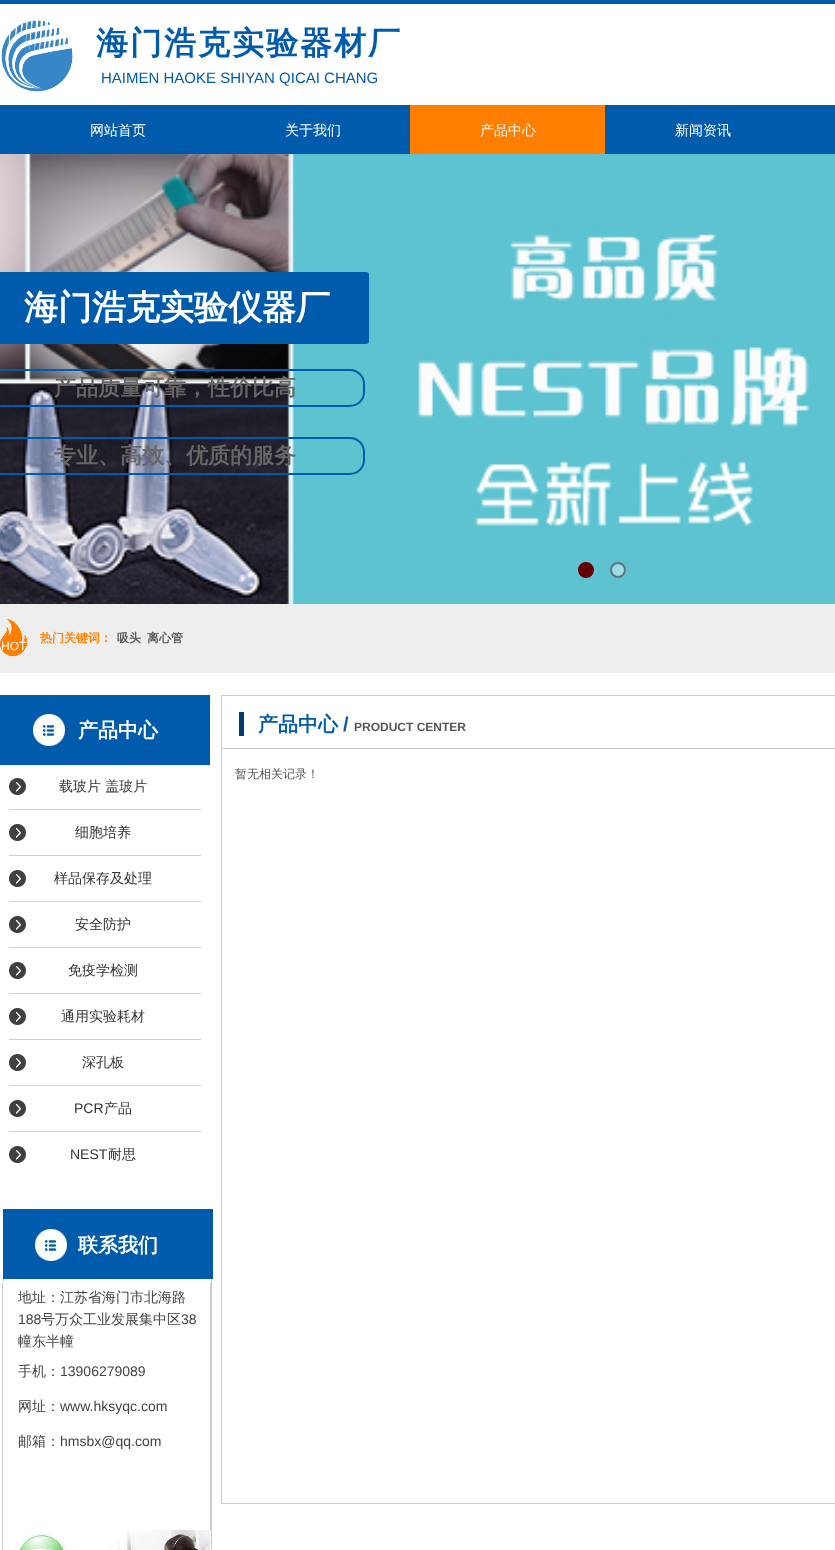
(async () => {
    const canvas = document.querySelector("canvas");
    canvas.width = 835;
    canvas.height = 1550;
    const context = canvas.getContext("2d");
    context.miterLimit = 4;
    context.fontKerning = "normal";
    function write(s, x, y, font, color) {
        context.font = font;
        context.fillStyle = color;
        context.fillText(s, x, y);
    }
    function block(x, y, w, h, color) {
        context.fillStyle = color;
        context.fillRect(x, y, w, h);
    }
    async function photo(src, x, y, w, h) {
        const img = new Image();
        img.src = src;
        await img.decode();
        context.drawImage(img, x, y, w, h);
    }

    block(0, 0, 835, 1550, "rgb(255, 255, 255)");
    block(0, 0, 835, 4, "rgb(0, 91, 172)");
    await photo("media/1.png", 1, 20, 72, 72);
    context.letterSpacing = "2px";
    write("海门浩克实验器材厂", 96, 54, "bold 32px WenQuanYi Zen Hei", "rgb(0, 91, 172)");
    context.letterSpacing = "0px";
    write("HAIMEN HAOKE SHIYAN QICAI CHANG", 101, 83, "15px Liberation Sans", "rgb(0, 91, 172)");
    block(0, 105, 835, 49, "rgb(0, 91, 172)");
    write("网站首页", 90, 135, "500 14px WenQuanYi Zen Hei", "rgb(255, 255, 255)");
    write("关于我们", 285, 135, "500 14px WenQuanYi Zen Hei", "rgb(255, 255, 255)");
    block(410, 105, 195, 49, "rgb(255, 126, 0)");
    write("产品中心", 480, 135, "500 14px WenQuanYi Zen Hei", "rgb(255, 255, 255)");
    write("新闻资讯", 675, 135, "500 14px WenQuanYi Zen Hei", "rgb(255, 255, 255)");
    await photo("media/2.png", 0, 154, 835, 450);
    context.fillStyle = "rgb(102, 0, 0)";
    context.beginPath();
    context.arc(586, 570, 7, 0, Math.PI * 2);
    context.fill();
    context.strokeStyle = "rgb(102, 0, 0)";
    context.lineWidth = 2;
    context.stroke();
    context.fillStyle = "rgb(158, 219, 227)";
    context.beginPath();
    context.arc(618, 570, 7, 0, Math.PI * 2);
    context.fill();
    context.strokeStyle = "rgb(97, 117, 125)";
    context.stroke();
    context.fillStyle = "rgb(0, 91, 172)";
    context.beginPath();
    context.roundRect(0, 272, 369, 72, [0, 3, 3, 0]);
    context.fill();
    write("海门浩克实验仪器厂", 24, 319, "bold 34px WenQuanYi Zen Hei", "rgb(255, 255, 255)");
    context.beginPath();
    context.roundRect(-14, 370, 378, 36, 14);
    context.strokeStyle = "rgb(0, 91, 172)";
    context.stroke();
    write("产品质量可靠，性价比高", 54, 395, "bold 22px WenQuanYi Zen Hei", "rgb(102, 102, 102)");
    context.beginPath();
    context.roundRect(-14, 438, 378, 36, 14);
    context.stroke();
    write("专业、高效、优质的服务", 54, 463, "bold 22px WenQuanYi Zen Hei", "rgb(102, 102, 102)");
    block(0, 604, 835, 69, "rgb(238, 238, 238)");
    await photo("media/3.png", 0, 619, 27, 37);
    write("热门关键词：", 40, 642, "bold 12px WenQuanYi Zen Hei", "rgb(255, 126, 0)");
    write("吸头", 117, 642, "bold 12px WenQuanYi Zen Hei", "rgb(85, 85, 85)");
    write("离心管", 147, 642, "bold 12px WenQuanYi Zen Hei", "rgb(85, 85, 85)");
    write("HOT", 1, 650, "12px Liberation Sans", "rgb(255, 255, 255)");
    block(0, 695, 210, 70, "rgb(0, 91, 172)");
    await photo("media/4.png", 33, 714, 32, 32);
    write("产品中心", 78, 737, "bold 20px WenQuanYi Zen Hei", "rgb(255, 255, 255)");
    context.strokeStyle = "rgb(204, 204, 204)";
    context.lineWidth = 1;
    context.strokeRect(221.5, 695.5, 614, 808);
    block(239, 712, 5, 24, "rgb(0, 61, 115)");
    write("产品中心", 258, 731, "bold 20px WenQuanYi Zen Hei", "rgb(0, 91, 172)");
    write("/", 343, 731, "bold 20px Liberation Sans", "rgb(0, 91, 172)");
    write("PRODUCT CENTER", 354, 731, "bold 12px Liberation Sans", "rgb(85, 85, 85)");
    block(221, 748, 614, 1, "rgb(204, 204, 204)");
    write("暂无相关记录！", 235, 778, "500 12px WenQuanYi Zen Hei", "rgb(85, 85, 85)");
    await photo("media/5.png", 9, 778, 17, 17);
    block(9, 809, 192, 1, "rgb(208, 208, 208)");
    write("载玻片 盖玻片", 59, 791, "500 14px WenQuanYi Zen Hei", "rgb(51, 51, 51)");
    await photo("media/5.png", 9, 824, 17, 17);
    block(9, 855, 192, 1, "rgb(208, 208, 208)");
    write("细胞培养", 75, 837, "500 14px WenQuanYi Zen Hei", "rgb(51, 51, 51)");
    await photo("media/5.png", 9, 870, 17, 17);
    block(9, 901, 192, 1, "rgb(208, 208, 208)");
    write("样品保存及处理", 54, 883, "500 14px WenQuanYi Zen Hei", "rgb(51, 51, 51)");
    await photo("media/5.png", 9, 916, 17, 17);
    block(9, 947, 192, 1, "rgb(208, 208, 208)");
    write("安全防护", 75, 929, "500 14px WenQuanYi Zen Hei", "rgb(51, 51, 51)");
    await photo("media/5.png", 9, 962, 17, 17);
    block(9, 993, 192, 1, "rgb(208, 208, 208)");
    write("免疫学检测", 68, 975, "500 14px WenQuanYi Zen Hei", "rgb(51, 51, 51)");
    await photo("media/5.png", 9, 1008, 17, 17);
    block(9, 1039, 192, 1, "rgb(208, 208, 208)");
    write("通用实验耗材", 61, 1021, "500 14px WenQuanYi Zen Hei", "rgb(51, 51, 51)");
    await photo("media/5.png", 9, 1054, 17, 17);
    block(9, 1085, 192, 1, "rgb(208, 208, 208)");
    write("深孔板", 82, 1067, "500 14px WenQuanYi Zen Hei", "rgb(51, 51, 51)");
    await photo("media/5.png", 9, 1100, 17, 17);
    block(9, 1131, 192, 1, "rgb(208, 208, 208)");
    write("PCR", 74, 1113, "14px Liberation Sans", "rgb(51, 51, 51)");
    write("产品", 104, 1113, "500 14px WenQuanYi Zen Hei", "rgb(51, 51, 51)");
    await photo("media/5.png", 9, 1146, 17, 17);
    write("NEST", 70, 1159, "14px Liberation Sans", "rgb(51, 51, 51)");
    write("耐思", 108, 1159, "500 14px WenQuanYi Zen Hei", "rgb(51, 51, 51)");
    block(211, 1279, 1, 271, "rgb(204, 204, 204)");
    block(3, 1279, 1, 3, "rgb(204, 204, 204)");
    block(3, 1209, 210, 70, "rgb(0, 91, 172)");
    await photo("media/4.png", 35, 1229, 32, 32);
    write("联系我们", 78, 1252, "bold 20px WenQuanYi Zen Hei", "rgb(255, 255, 255)");
    block(210, 1283, 1, 247, "rgb(204, 204, 204)");
    block(2, 1283, 1, 267, "rgb(204, 204, 204)");
    write("地址：", 18, 1302, "500 14px WenQuanYi Zen Hei", "rgb(67, 67, 67)");
    write("江苏省海门市北海路", 60, 1302, "500 14px WenQuanYi Zen Hei", "rgb(67, 67, 67)");
    write("188", 18, 1324, "14px Liberation Sans", "rgb(67, 67, 67)");
    write("号万众工业发展集中区", 41, 1324, "500 14px WenQuanYi Zen Hei", "rgb(67, 67, 67)");
    write("38", 181, 1324, "14px Liberation Sans", "rgb(67, 67, 67)");
    write("幢东半幢", 18, 1346, "500 14px WenQuanYi Zen Hei", "rgb(67, 67, 67)");
    write("手机：", 18, 1376, "500 14px WenQuanYi Zen Hei", "rgb(67, 67, 67)");
    write("13906279089", 60, 1376, "14px Liberation Sans", "rgb(67, 67, 67)");
    write("网址：", 18, 1411, "500 14px WenQuanYi Zen Hei", "rgb(67, 67, 67)");
    write("www.hksyqc.com", 60, 1411, "14px Liberation Sans", "rgb(67, 67, 67)");
    write("邮箱：", 18, 1446, "500 14px WenQuanYi Zen Hei", "rgb(67, 67, 67)");
    write("hmsbx@qq.com", 60, 1446, "14px Liberation Sans", "rgb(67, 67, 67)");
    await photo("media/6.png", 13, 1530, 198, 20);
})();
